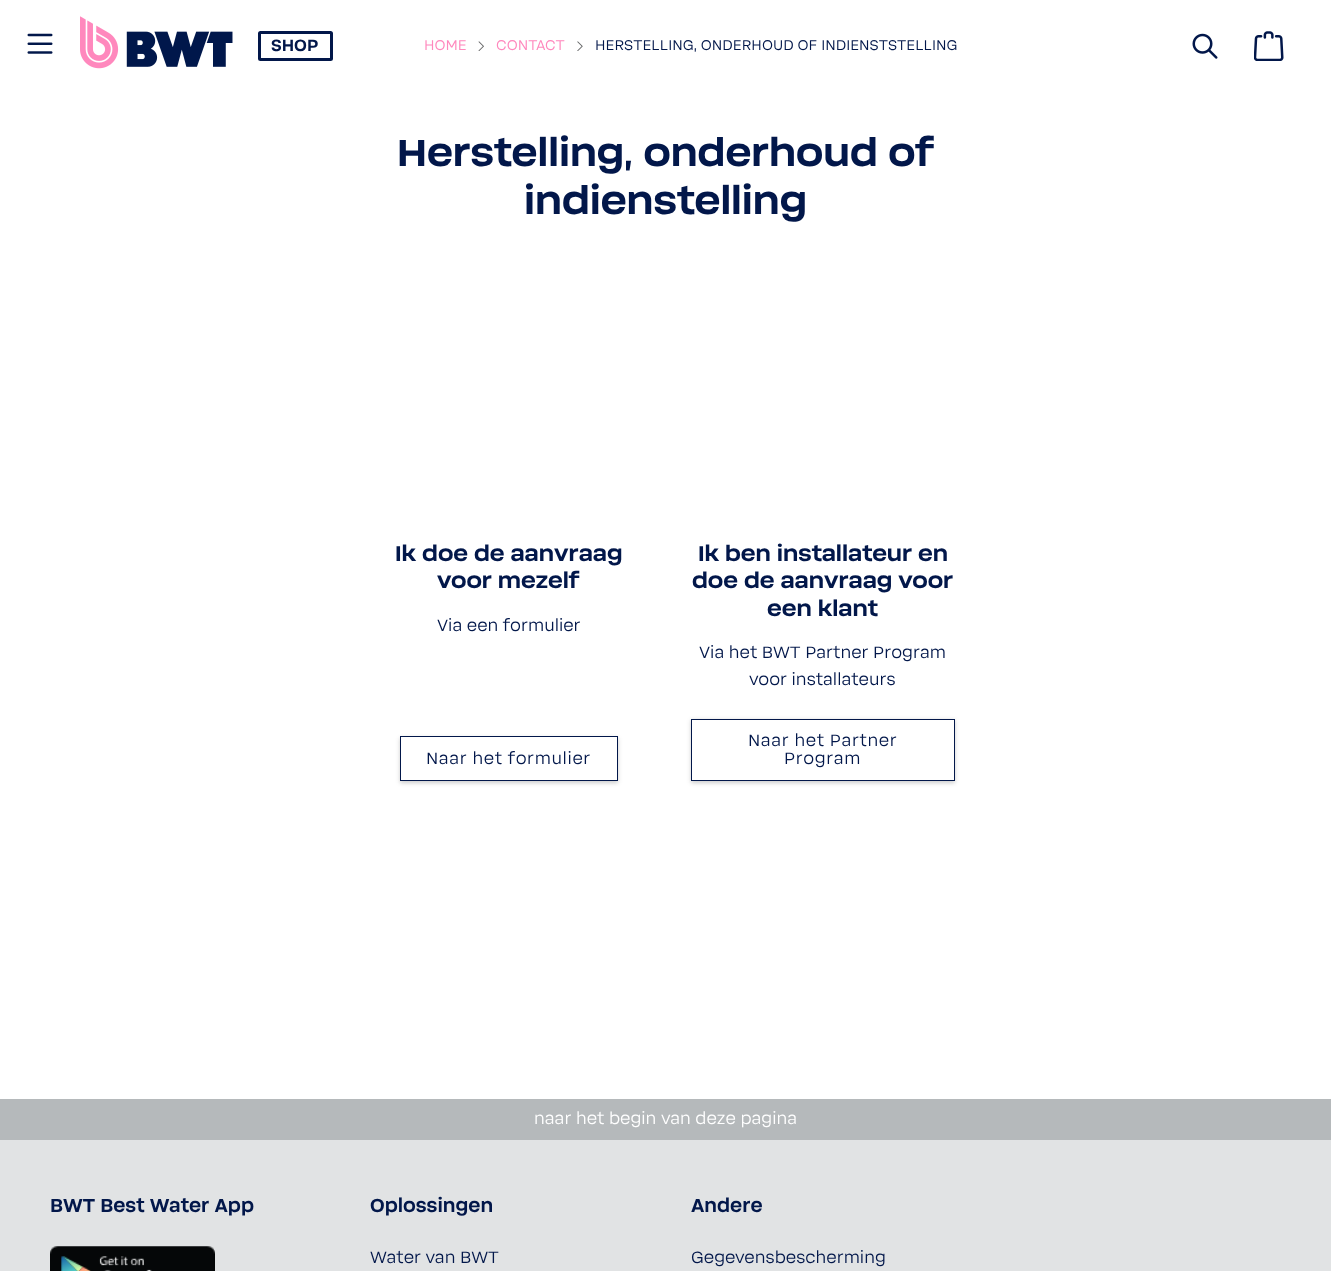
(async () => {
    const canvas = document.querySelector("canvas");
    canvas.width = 1331;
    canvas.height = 1271;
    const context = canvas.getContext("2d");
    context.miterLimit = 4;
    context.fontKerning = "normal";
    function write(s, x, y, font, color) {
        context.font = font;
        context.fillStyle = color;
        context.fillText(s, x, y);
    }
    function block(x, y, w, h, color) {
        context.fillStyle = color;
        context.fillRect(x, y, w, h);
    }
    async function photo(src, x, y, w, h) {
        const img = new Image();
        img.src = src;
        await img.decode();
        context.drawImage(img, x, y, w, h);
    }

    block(0, 0, 1331, 1271, "rgb(255, 255, 255)");
    await photo("media/1.png", 27, 33, 26, 21);
    await photo("media/2.png", 80, 16, 153, 53);
    context.beginPath();
    context.roundRect(259.5, 32.5, 72, 27, 1);
    context.strokeStyle = "rgb(2, 23, 74)";
    context.lineWidth = 3;
    context.stroke();
    write("SHOP", 271, 51, "bold 17.5px 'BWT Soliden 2'", "rgb(2, 23, 74)");
    write("HOME", 424, 50, "15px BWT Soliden", "rgb(255, 136, 189)");
    await photo("media/3.png", 478, 41, 6, 10);
    write("CONTACT", 496, 50, "15px BWT Soliden", "rgb(255, 136, 189)");
    await photo("media/4.png", 577, 41, 6, 10);
    write("HERSTELLING, ONDERHOUD OF INDIENSTSTELLING", 595, 50, "15px BWT Soliden", "rgb(2, 23, 74)");
    await photo("media/5.png", 1192, 33, 26, 26);
    await photo("media/6.png", 1254, 31, 30, 30);
    write("Herstelling, onderhoud of", 397, 166, "bold 40px BWT Soliden", "rgb(2, 23, 74)");
    write("indienstelling", 524, 214, "bold 40px BWT Soliden", "rgb(2, 23, 74)");
    write("Ik doe de aanvraag", 395, 561, "bold 22.75px BWT Soliden", "rgb(2, 23, 74)");
    write("voor mezelf", 437, 588, "bold 22.75px BWT Soliden", "rgb(2, 23, 74)");
    write("Via een formulier", 437, 631, "17.5px BWT Soliden", "rgb(2, 23, 74)");
    context.save();
    context.beginPath();
    context.moveTo(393, 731);
    context.lineTo(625, 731);
    context.lineTo(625, 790);
    context.lineTo(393, 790);
    context.closePath();
    context.moveTo(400, 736);
    context.lineTo(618, 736);
    context.lineTo(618, 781);
    context.lineTo(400, 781);
    context.closePath();
    context.clip("evenodd");
    context.fillStyle = "rgba(0, 0, 0, 0.2)";
    context.filter = "blur(2px)";
    context.beginPath();
    context.rect(400, 738, 218, 45);
    context.fill();
    context.filter = "none";
    context.restore();
    context.lineWidth = 1;
    context.strokeRect(400.5, 736.5, 217, 44);
    context.letterSpacing = "0.6px";
    write("Naar het formulier", 426, 764, "17.5px BWT Soliden", "rgb(2, 23, 74)");
    context.letterSpacing = "0px";
    write("Ik ben installateur en", 698, 561, "bold 22.75px BWT Soliden", "rgb(2, 23, 74)");
    write("doe de aanvraag voor", 692, 588, "bold 22.75px BWT Soliden", "rgb(2, 23, 74)");
    write("een klant", 767, 616, "bold 22.75px BWT Soliden", "rgb(2, 23, 74)");
    write("Via het BWT Partner Program", 699, 658, "17.5px BWT Soliden", "rgb(2, 23, 74)");
    write("voor installateurs", 749, 685, "17.5px BWT Soliden", "rgb(2, 23, 74)");
    context.save();
    context.beginPath();
    context.moveTo(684, 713);
    context.lineTo(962, 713);
    context.lineTo(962, 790);
    context.lineTo(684, 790);
    context.closePath();
    context.moveTo(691, 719);
    context.lineTo(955, 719);
    context.lineTo(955, 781);
    context.lineTo(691, 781);
    context.closePath();
    context.clip("evenodd");
    context.fillStyle = "rgba(0, 0, 0, 0.2)";
    context.filter = "blur(2px)";
    context.beginPath();
    context.rect(691, 720, 264, 63);
    context.fill();
    context.filter = "none";
    context.restore();
    context.strokeRect(691.5, 719.5, 263, 61);
    context.letterSpacing = "0.6px";
    write("Naar het Partner", 748, 746, "17.5px BWT Soliden", "rgb(2, 23, 74)");
    write("Program", 784, 764, "17.5px BWT Soliden", "rgb(2, 23, 74)");
    block(0, 1140, 1331, 131, "rgb(225, 227, 228)");
    block(0, 1099, 1331, 41, "rgb(181, 185, 187)");
    context.letterSpacing = "0px";
    write("naar het begin van deze pagina", 534, 1124, "17.5px BWT Soliden", "rgb(255, 255, 255)");
    write("BWT Best Water App", 50, 1212, "bold 20px 'BWT Soliden 2'", "rgb(2, 23, 74)");
    await photo("media/7.png", 50, 1246, 165, 25);
    write("Oplossingen", 370, 1212, "bold 20px 'BWT Soliden 2'", "rgb(2, 23, 74)");
    write("Water van BWT", 370, 1263, "17.5px BWT Soliden", "rgb(2, 23, 74)");
    write("Andere", 691, 1212, "bold 20px 'BWT Soliden 2'", "rgb(2, 23, 74)");
    write("Gegevensbescherming", 691, 1263, "17.5px BWT Soliden", "rgb(2, 23, 74)");
})();
